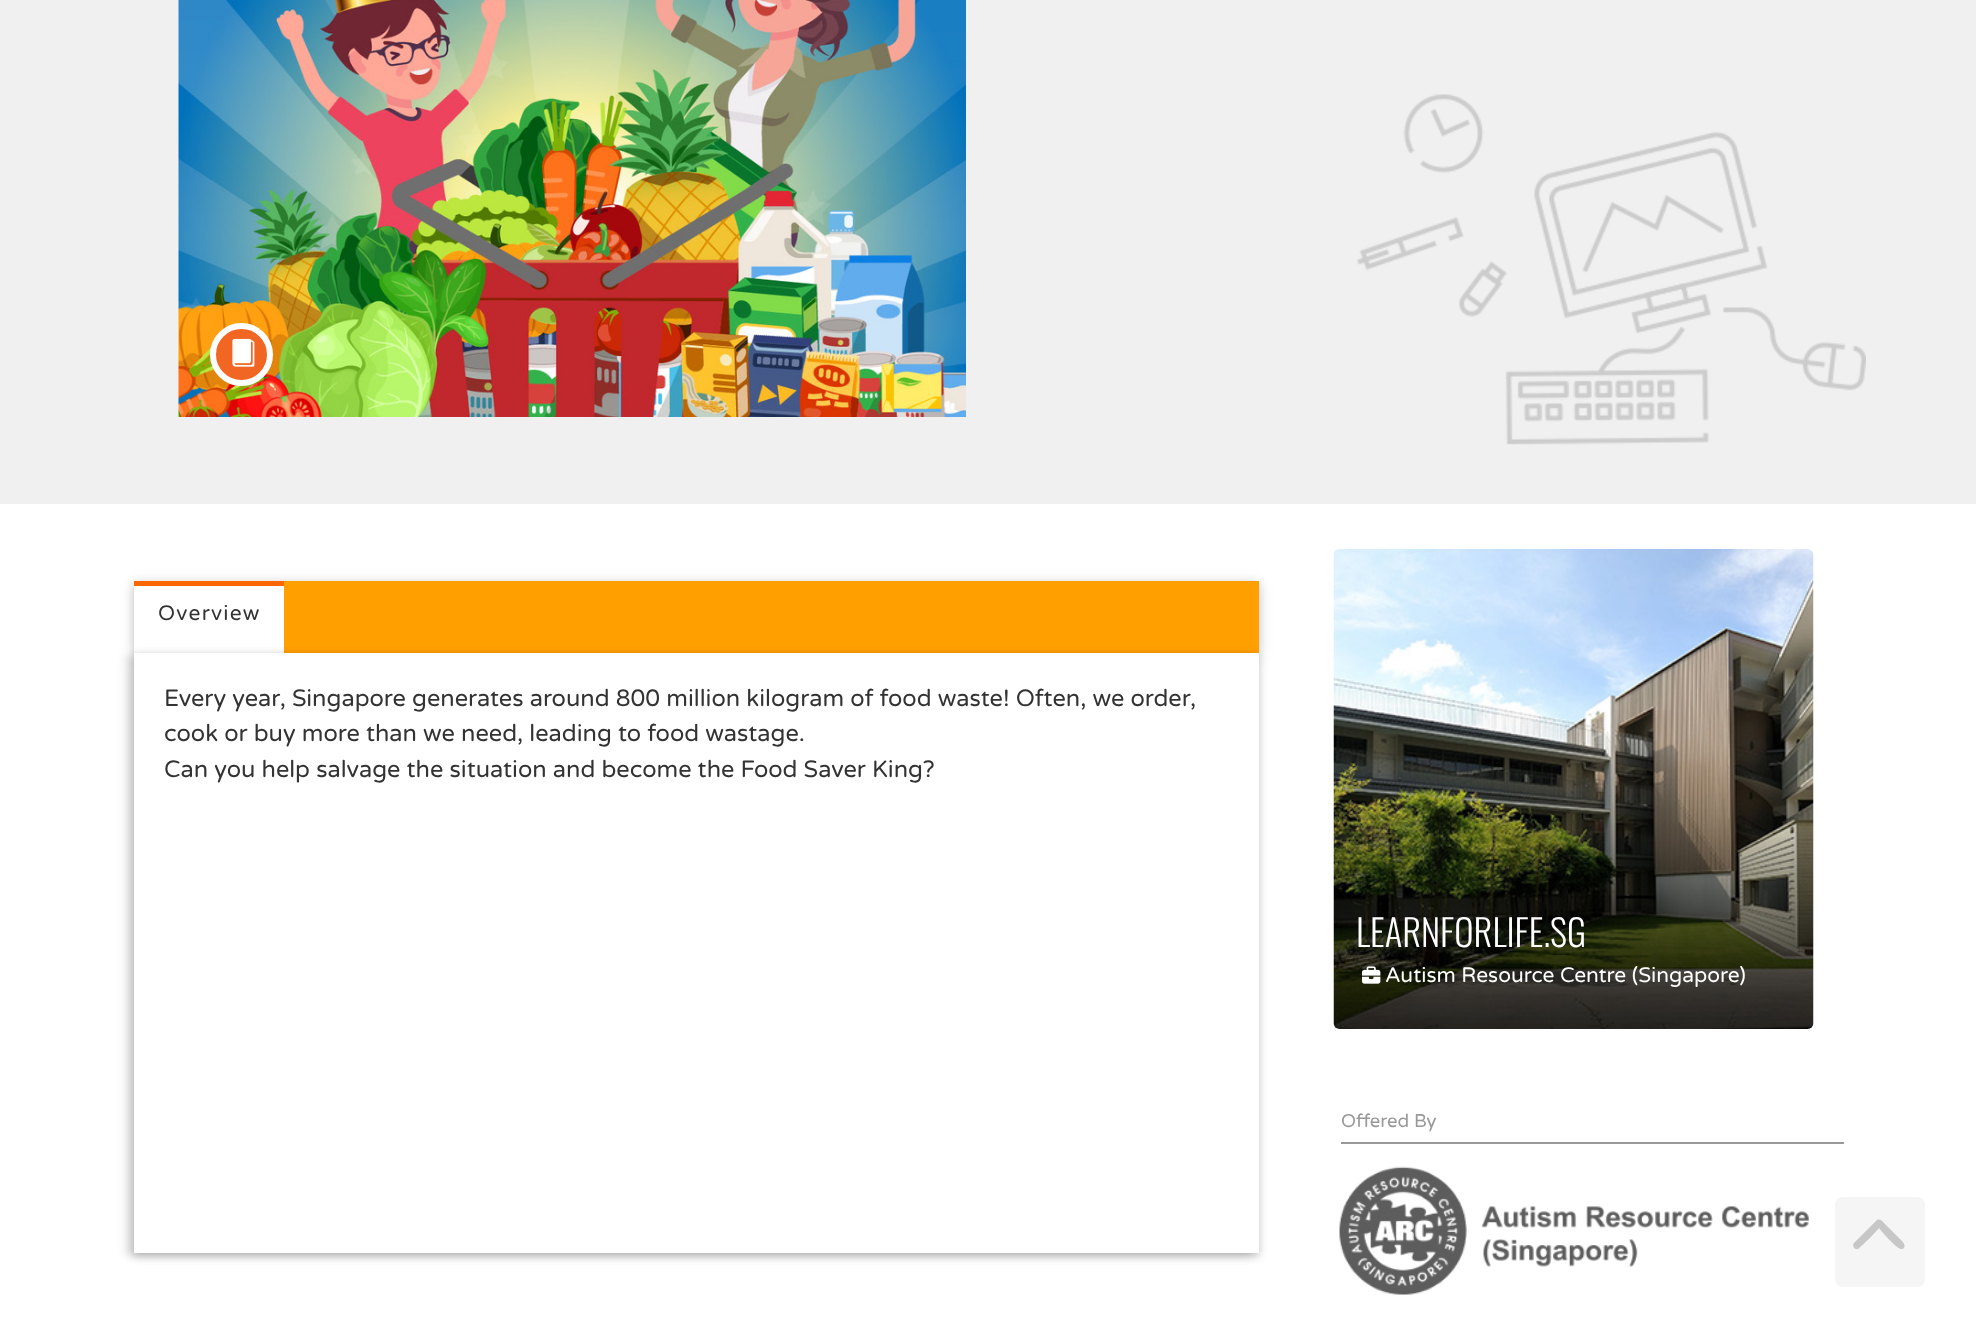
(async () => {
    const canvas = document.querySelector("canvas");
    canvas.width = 1976;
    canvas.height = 1339;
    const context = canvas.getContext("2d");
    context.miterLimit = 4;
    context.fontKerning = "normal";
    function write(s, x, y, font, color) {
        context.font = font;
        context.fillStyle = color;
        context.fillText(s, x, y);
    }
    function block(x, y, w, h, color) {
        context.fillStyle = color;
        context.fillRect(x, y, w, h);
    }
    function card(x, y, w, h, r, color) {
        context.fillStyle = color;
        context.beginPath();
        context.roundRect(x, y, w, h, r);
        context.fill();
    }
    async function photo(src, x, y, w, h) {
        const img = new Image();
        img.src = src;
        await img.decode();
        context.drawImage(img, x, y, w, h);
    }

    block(0, 0, 1976, 1339, "rgb(255, 255, 255)");
    block(0, 0, 1976, 504, "rgb(240, 240, 240)");
    await photo("media/1.png", 1357, 94, 509, 351);
    await photo("media/2.png", 178, 0, 788, 417);
    context.fillStyle = "rgb(241, 102, 34)";
    context.beginPath();
    context.arc(241.5, 354.5, 28.5, 0, Math.PI * 2);
    context.fill();
    context.strokeStyle = "rgb(255, 255, 255)";
    context.lineWidth = 6;
    context.stroke();
    await photo("media/3.png", 232, 338, 23, 29);
    context.fillStyle = "rgba(0, 0, 0, 0.12)";
    context.filter = "blur(7.5px)";
    context.beginPath();
    context.rect(134, 584, 1125, 72);
    context.fill();
    context.filter = "none";
    context.fillStyle = "rgba(0, 0, 0, 0.16)";
    context.filter = "blur(4px)";
    context.beginPath();
    context.rect(134, 584, 1125, 72);
    context.fill();
    context.filter = "none";
    block(284, 581, 975, 72, "rgb(255, 160, 0)");
    block(134, 586, 150, 67, "rgb(255, 255, 255)");
    block(134, 581, 150, 5, "rgb(255, 102, 0)");
    context.letterSpacing = "1.25px";
    write("Overview", 158, 620, "21px Varela Round", "rgb(51, 51, 51)");
    context.fillStyle = "rgba(0, 0, 0, 0.12)";
    context.filter = "blur(4px)";
    context.beginPath();
    context.rect(126, 656, 1125, 600);
    context.fill();
    context.filter = "none";
    context.filter = "blur(4px)";
    context.beginPath();
    context.rect(134, 656, 1125, 600);
    context.fill();
    context.filter = "none";
    context.filter = "blur(4px)";
    context.beginPath();
    context.rect(134, 656, 1125, 600);
    context.fill();
    context.filter = "none";
    block(134, 653, 1125, 600, "rgb(255, 255, 255)");
    context.letterSpacing = "0px";
    write("Every year, Singapore generates around 800 million kilogram of food waste! Often, we order,", 164, 706, "23.6px Varela Round", "rgb(51, 51, 51)");
    write("cook or buy more than we need, leading to food wastage.", 164, 741, "23.6px Varela Round", "rgb(51, 51, 51)");
    write("Can you help salvage the situation and become the Food Saver King?", 164, 777, "23.6px Varela Round", "rgb(51, 51, 51)");
    await photo("media/4.png", 1333, 549, 481, 480);
    write("LEARNFORLIFE.SG", 1356, 947, "300 36.75px Oswald", "rgb(255, 255, 255)");
    await photo("media/5.png", 1362, 966, 19, 18);
    write("Autism Resource Centre (Singapore)", 1385, 982, "21px Varela Round", "rgb(255, 255, 255)");
    block(1341, 1142, 503, 2, "rgb(153, 153, 153)");
    write("Offered By", 1341, 1127, "18.5px Varela Round", "rgb(153, 153, 153)");
    await photo("media/6.png", 1339, 1166, 470, 129);
    card(1835, 1197, 90, 90, 8, "rgb(245, 245, 245)");
    context.fillStyle = "rgb(199, 199, 199)";
    context.beginPath();
    context.moveTo(1876, 1221);
    context.bezierCurveTo(1880, 1217, 1883, 1222, 1885, 1224);
    context.lineTo(1900, 1239);
    context.bezierCurveTo(1902, 1241, 1906, 1244, 1904, 1248);
    context.bezierCurveTo(1903, 1249, 1902, 1249, 1901, 1249);
    context.bezierCurveTo(1897, 1249, 1882, 1232, 1879, 1228);
    context.bezierCurveTo(1876, 1232, 1860, 1248, 1858, 1249);
    context.bezierCurveTo(1854, 1250, 1852, 1245, 1854, 1243);
    context.closePath();
    context.fill();
})();
